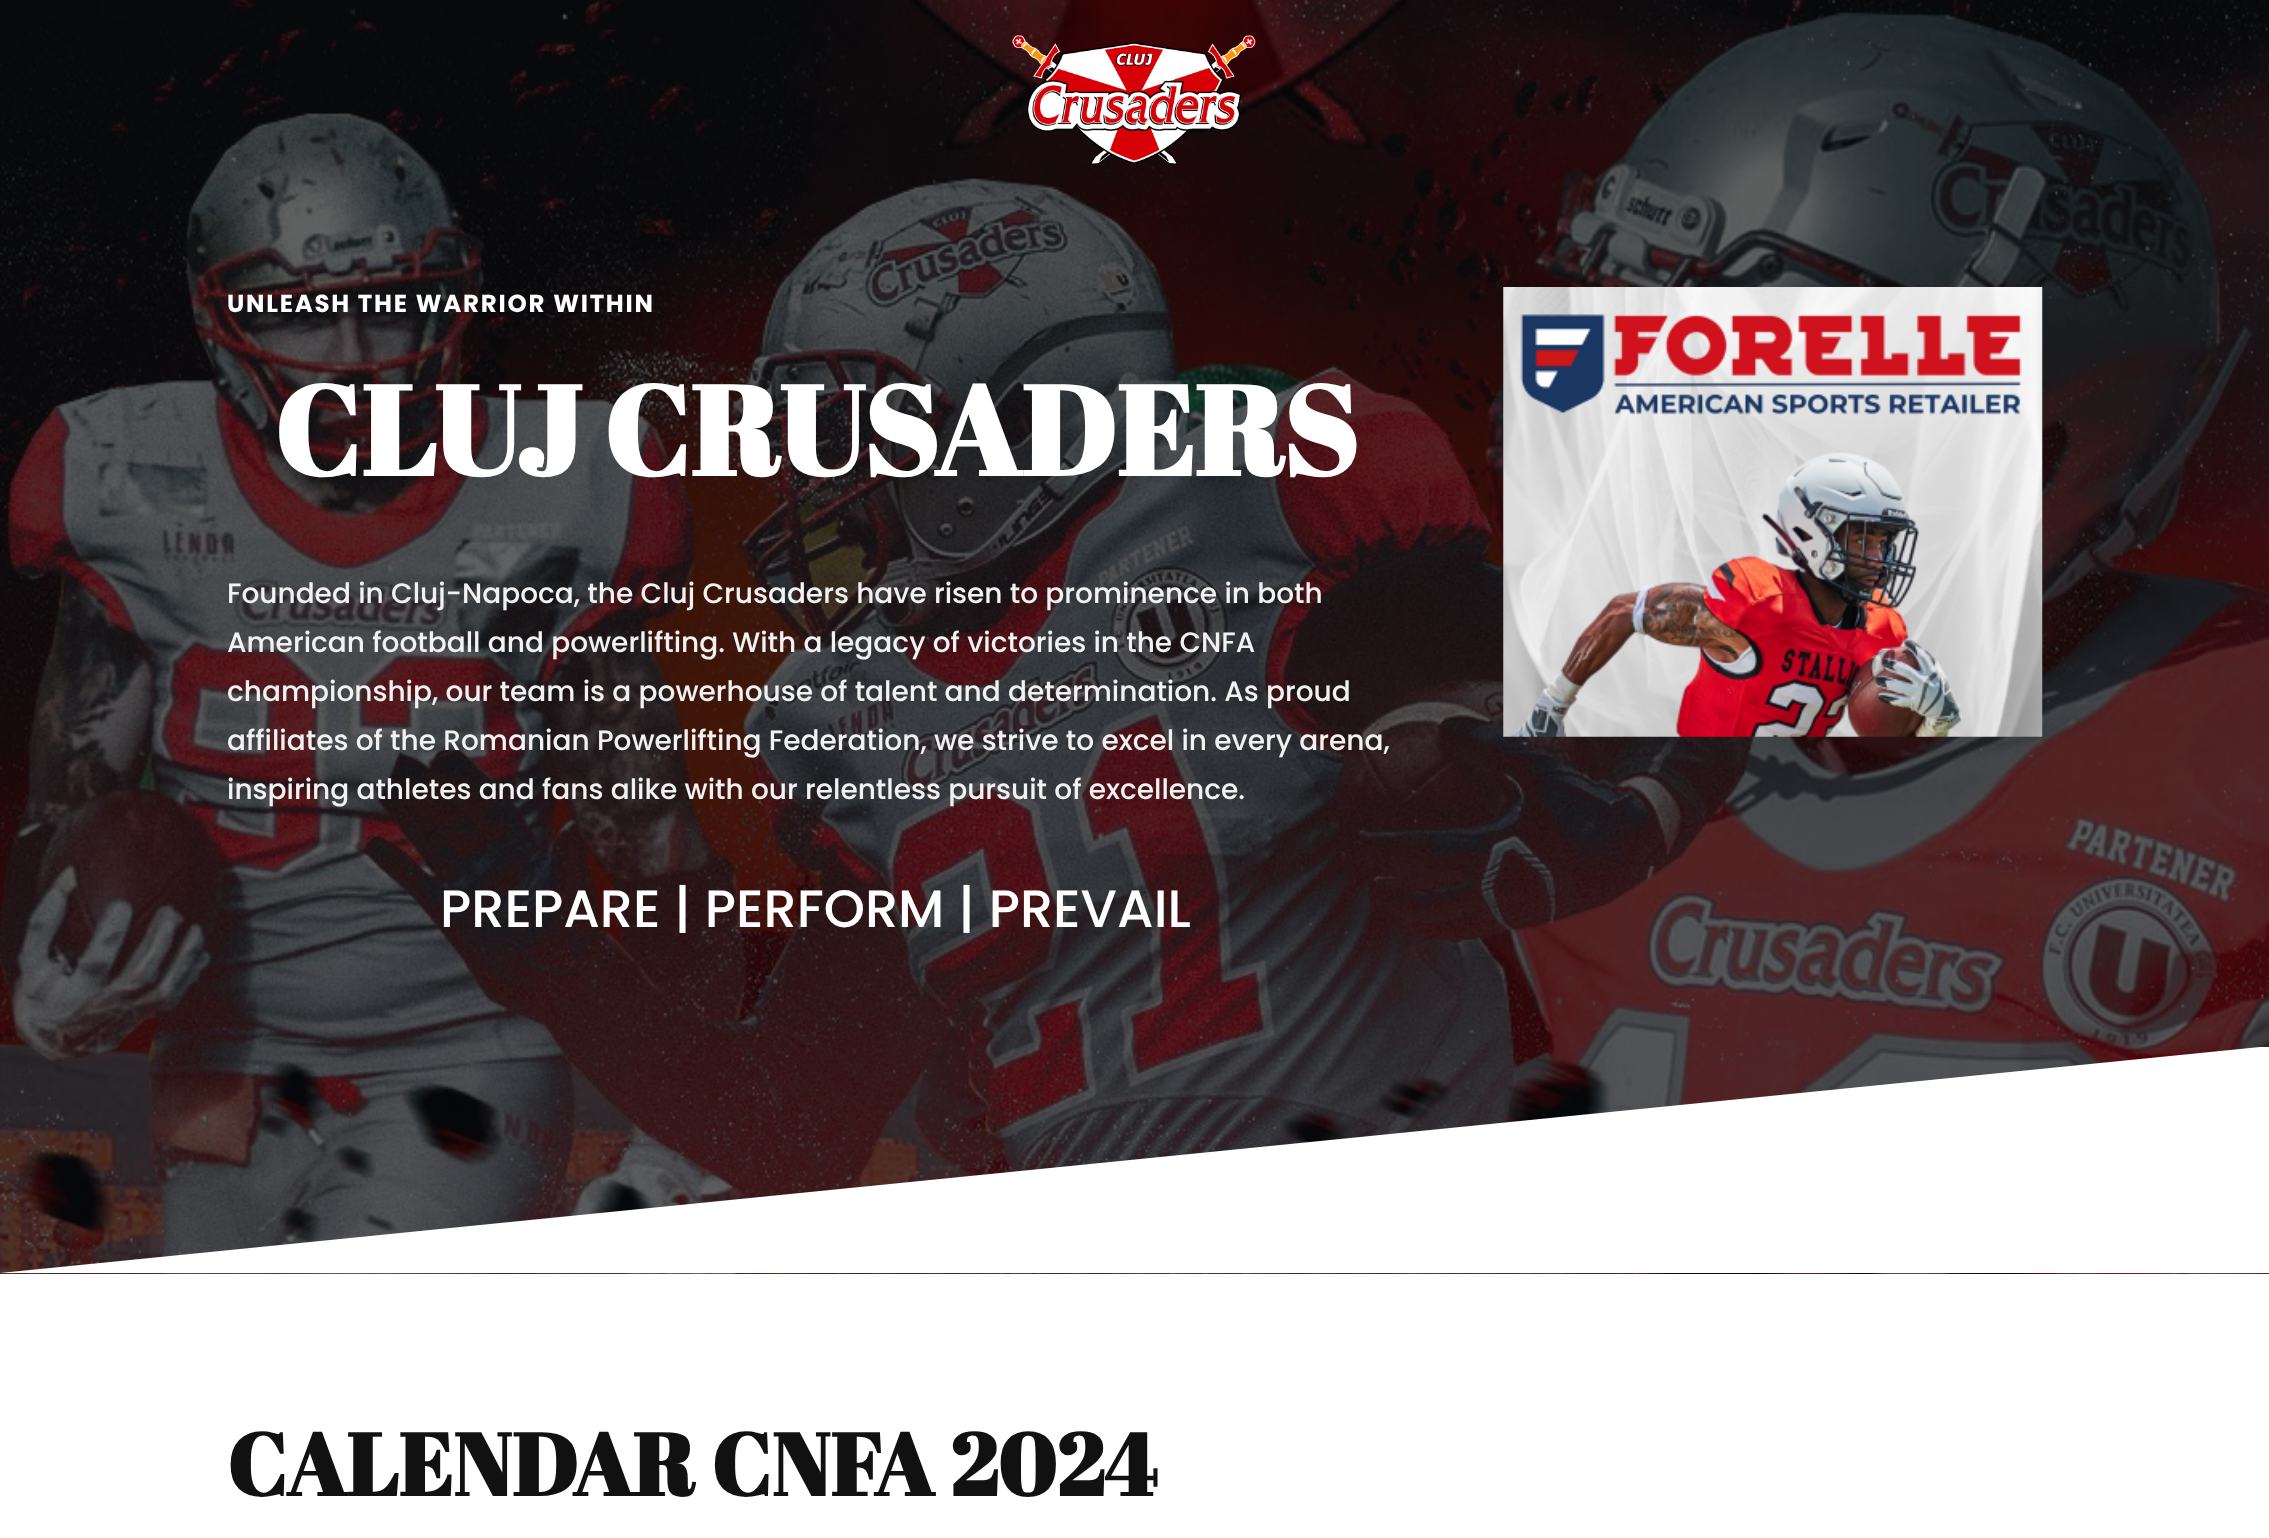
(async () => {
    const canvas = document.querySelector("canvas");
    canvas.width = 2269;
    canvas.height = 1538;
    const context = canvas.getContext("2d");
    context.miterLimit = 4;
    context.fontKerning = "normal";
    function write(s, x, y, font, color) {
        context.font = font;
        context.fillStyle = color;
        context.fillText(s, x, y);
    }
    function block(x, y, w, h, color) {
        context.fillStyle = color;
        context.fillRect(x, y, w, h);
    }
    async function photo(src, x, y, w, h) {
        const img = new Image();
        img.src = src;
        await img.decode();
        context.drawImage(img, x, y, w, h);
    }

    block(0, 0, 2269, 1538, "rgb(255, 255, 255)");
    await photo("media/1.png", 0, 0, 2269, 1274);
    await photo("media/2.png", 1012, 35, 244, 130);
    context.letterSpacing = "1.75px";
    write("UNLEASH THE WARRIOR WITHIN", 227, 312, "bold 24.5px Poppins", "rgb(255, 255, 255)");
    context.letterSpacing = "0px";
    write("CLUJ CRUSADERS", 274, 476, "bold 126px Abril Fatface", "rgb(255, 255, 255)");
    write("Founded in Cluj-Napoca, the Cluj Crusaders have risen to prominence in both", 227, 603, "500 28px Poppins", "rgb(242, 242, 242)");
    write("American football and powerlifting. With a legacy of victories in the CNFA", 227, 652, "500 28px Poppins", "rgb(242, 242, 242)");
    write("championship, our team is a powerhouse of talent and determination. As proud", 227, 701, "500 28px Poppins", "rgb(242, 242, 242)");
    write("affiliates of the Romanian Powerlifting Federation, we strive to excel in every arena,", 227, 750, "500 28px Poppins", "rgb(242, 242, 242)");
    write("inspiring athletes and fans alike with our relentless pursuit of excellence.", 227, 799, "500 28px Poppins", "rgb(242, 242, 242)");
    write("PREPARE | PERFORM | PREVAIL", 440, 927, "500 52.5px Poppins", "rgb(255, 255, 255)");
    await photo("media/3.png", 1503, 287, 540, 450);
    context.save();
    context.beginPath();
    context.rect(0, 1047, 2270, 227);
    context.clip();
    context.beginPath();
    context.moveTo(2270, 1046);
    context.lineTo(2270, 1273);
    context.lineTo(0, 1273);
    context.closePath();
    context.fill();
    context.restore();
    write("CALENDAR CNFA 2024", 227, 1496, "bold 87.5px Abril Fatface", "rgb(17, 17, 17)");
})();
